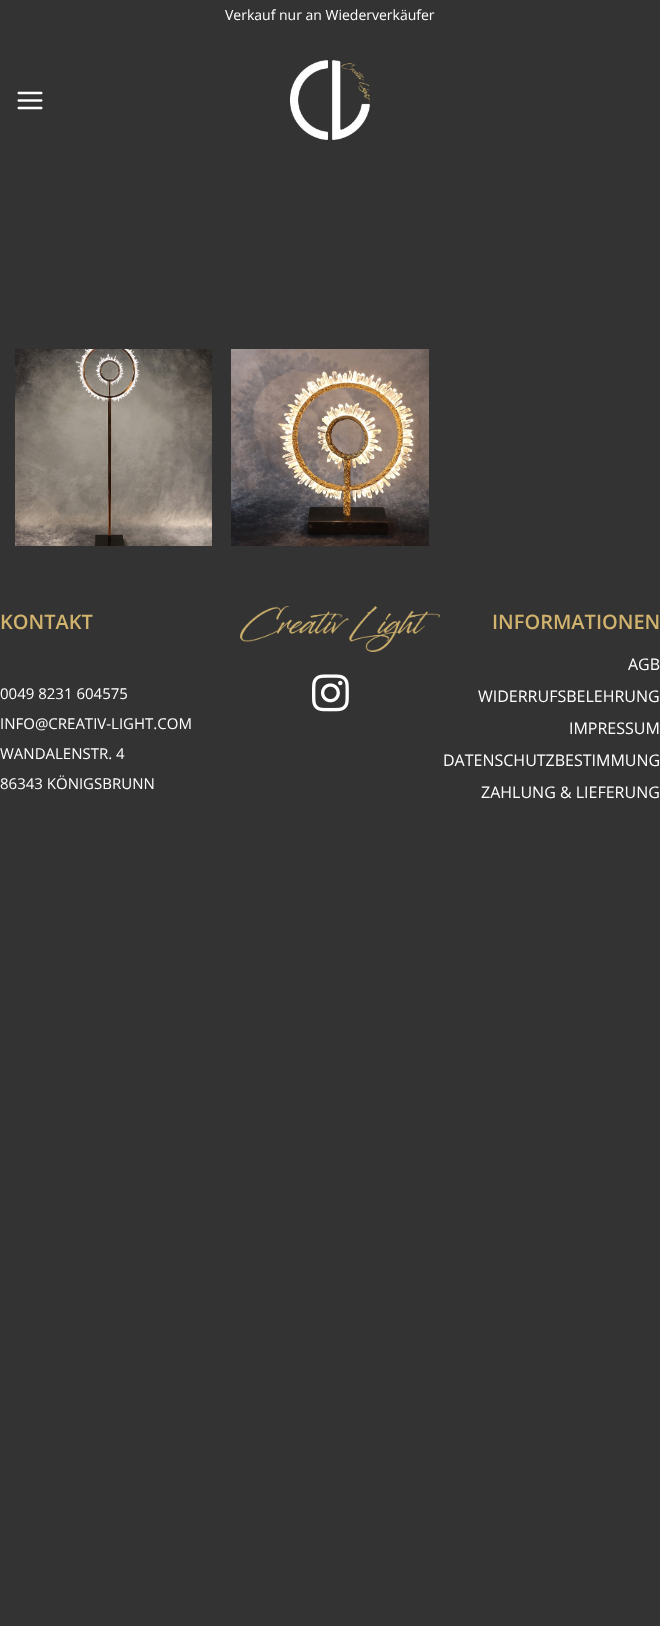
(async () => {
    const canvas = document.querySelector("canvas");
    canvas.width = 660;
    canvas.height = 1626;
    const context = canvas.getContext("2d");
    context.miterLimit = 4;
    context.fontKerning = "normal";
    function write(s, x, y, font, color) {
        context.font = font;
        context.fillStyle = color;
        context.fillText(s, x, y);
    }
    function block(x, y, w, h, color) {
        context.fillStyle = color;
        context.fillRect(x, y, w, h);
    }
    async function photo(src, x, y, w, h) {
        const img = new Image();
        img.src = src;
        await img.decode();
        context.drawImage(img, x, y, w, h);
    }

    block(0, 0, 660, 1626, "rgb(51, 51, 51)");
    write("Verkauf nur an Wiederverkäufer", 225, 20, "14px Open Sans", "rgb(255, 255, 255)");
    await photo("media/1.png", 17, 91, 26, 19);
    await photo("media/2.png", 290, 60, 80, 80);
    await photo("media/3.png", 15, 349, 197, 197);
    await photo("media/4.png", 231, 349, 198, 197);
    write("KONTAKT", 0, 629, "600 20px Open Sans", "rgb(209, 179, 110)");
    write("0049 8231 604575", 0, 699, "15px Open Sans", "rgb(255, 255, 255)");
    write("INFO@CREATIV-LIGHT.COM", 0, 729, "15px Open Sans", "rgb(255, 255, 255)");
    write("WANDALENSTR. 4", 0, 759, "15px Open Sans", "rgb(255, 255, 255)");
    write("86343 KÖNIGSBRUNN", 0, 789, "15px Open Sans", "rgb(255, 255, 255)");
    await photo("media/5.png", 240, 606, 200, 46);
    await photo("media/6.png", 312, 674, 37, 38);
    write("INFORMATIONEN", 492, 629, "600 20px Open Sans", "rgb(209, 179, 110)");
    write("AGB", 628, 670, "16px Open Sans", "rgb(255, 255, 255)");
    write("WIDERRUFSBELEHRUNG", 478, 702, "16px Open Sans", "rgb(255, 255, 255)");
    write("IMPRESSUM", 569, 734, "16px Open Sans", "rgb(255, 255, 255)");
    write("DATENSCHUTZBESTIMMUNG", 443, 766, "16px Open Sans", "rgb(255, 255, 255)");
    write("ZAHLUNG & LIEFERUNG", 481, 798, "16px Open Sans", "rgb(255, 255, 255)");
})();
